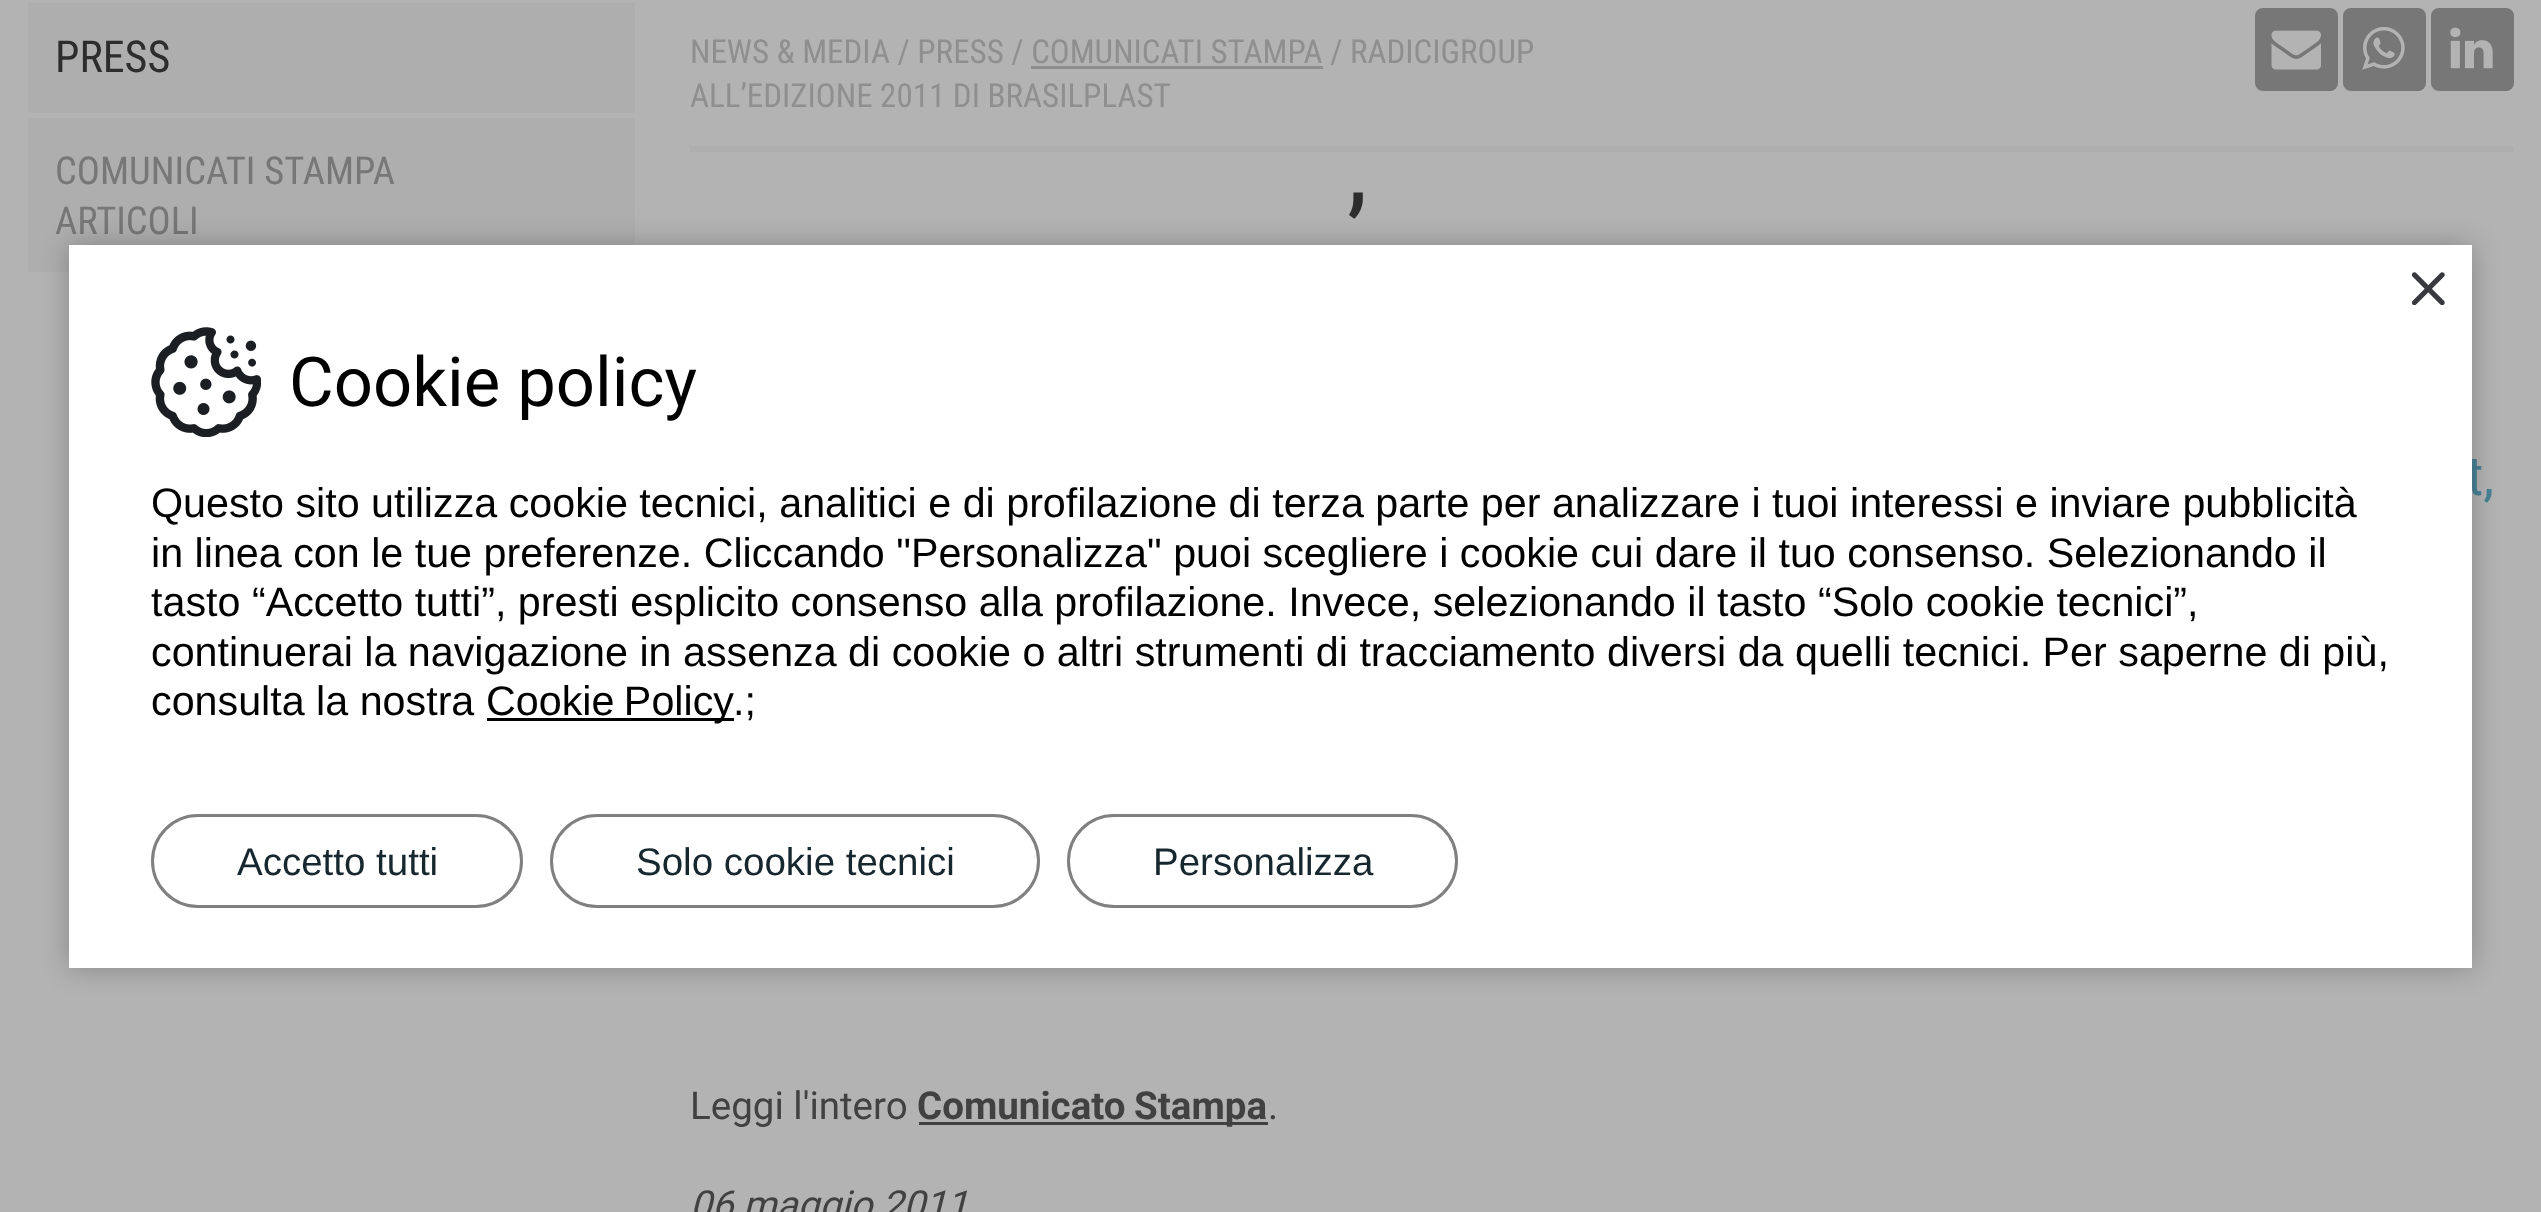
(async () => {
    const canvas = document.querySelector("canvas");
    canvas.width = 2541;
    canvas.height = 1212;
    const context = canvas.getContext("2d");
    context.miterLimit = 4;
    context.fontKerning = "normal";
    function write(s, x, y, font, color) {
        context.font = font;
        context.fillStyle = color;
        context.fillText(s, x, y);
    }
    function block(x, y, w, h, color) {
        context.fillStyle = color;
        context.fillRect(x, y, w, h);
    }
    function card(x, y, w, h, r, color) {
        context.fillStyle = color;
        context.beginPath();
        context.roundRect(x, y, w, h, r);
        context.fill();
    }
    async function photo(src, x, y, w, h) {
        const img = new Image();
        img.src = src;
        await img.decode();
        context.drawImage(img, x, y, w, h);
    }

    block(0, 0, 2541, 1212, "rgb(179, 179, 179)");
    block(28, 3, 607, 110, "rgb(174, 174, 174)");
    write("PRESS", 55, 72, "44px Roboto Condensed", "rgb(45, 45, 45)");
    block(28, 118, 607, 154, "rgb(174, 174, 174)");
    write("COMUNICATI STAMPA", 55, 184, "38.5px Roboto Condensed", "rgb(119, 119, 119)");
    write("ARTICOLI", 55, 234, "38.5px Roboto Condensed", "rgb(119, 119, 119)");
    block(690, 146, 1824, 6, "rgb(174, 174, 174)");
    write("NEWS & MEDIA / PRESS / COMUNICATI STAMPA / RADICIGROUP", 690, 63, "33px Roboto Condensed", "rgb(143, 143, 143)");
    block(1031, 66, 292, 3, "rgb(143, 143, 143)");
    write("ALL’EDIZIONE 2011 DI BRASILPLAST", 690, 107, "33px Roboto Condensed", "rgb(143, 143, 143)");
    card(2255, 8, 83, 83, 8, "rgb(119, 119, 119)");
    await photo("media/1.png", 2271, 30, 50, 40);
    card(2343, 8, 83, 83, 8, "rgb(119, 119, 119)");
    await photo("media/2.png", 2362, 27, 43, 43);
    card(2431, 8, 83, 83, 8, "rgb(119, 119, 119)");
    await photo("media/3.png", 2450, 27, 43, 42);
    write("’", 1346, 275, "110px Roboto Condensed", "rgb(45, 45, 45)");
    write("t,", 2467, 495, "55px Roboto Condensed", "rgb(71, 130, 149)");
    write("Leggi l'intero", 690, 1119, "38.5px Roboto", "rgb(65, 65, 65)");
    block(919, 1122, 349, 3, "rgb(65, 65, 65)");
    context.wordSpacing = "-1px";
    write("Comunicato Stampa", 917, 1119, "bold 38.5px Roboto", "rgb(65, 65, 65)");
    context.wordSpacing = "0px";
    write(".", 1268, 1119, "38.5px Roboto", "rgb(65, 65, 65)");
    write("06 maggio 2011", 690, 1218, "italic 38.5px Roboto", "rgb(65, 65, 65)");
    context.fillStyle = "rgba(0, 0, 0, 0.25)";
    context.filter = "blur(14px)";
    context.beginPath();
    context.rect(69, 245, 2403, 723);
    context.fill();
    context.filter = "none";
    block(69, 245, 2403, 723, "rgb(255, 255, 255)");
    await photo("media/4.png", 2412, 272, 33, 33);
    await photo("media/5.png", 151, 327, 110, 110);
    write("Cookie policy", 289, 406, "68.75px Roboto", "rgb(0, 0, 0)");
    write("Questo sito utilizza cookie tecnici, analitici e di profilazione di terza parte per analizzare i tuoi interessi e inviare pubblicità", 151, 517, "41.25px Liberation Sans", "rgb(0, 0, 0)");
    write("in linea con le tue preferenze. Cliccando \"Personalizza\" puoi scegliere i cookie cui dare il tuo consenso. Selezionando il", 151, 567, "41.25px Liberation Sans", "rgb(0, 0, 0)");
    write("tasto “Accetto tutti”, presti esplicito consenso alla profilazione. Invece, selezionando il tasto “Solo cookie tecnici”,", 151, 616, "41.25px Liberation Sans", "rgb(0, 0, 0)");
    write("continuerai la navigazione in assenza di cookie o altri strumenti di tracciamento diversi da quelli tecnici. Per saperne di più,", 151, 666, "41.25px Liberation Sans", "rgb(0, 0, 0)");
    write("consulta la nostra", 151, 715, "41.25px Liberation Sans", "rgb(0, 0, 0)");
    block(487, 718, 247, 3, "rgb(0, 0, 0)");
    context.wordSpacing = "-2px";
    write("Cookie Policy", 486, 715, "41.25px Liberation Sans", "rgb(0, 0, 0)");
    context.wordSpacing = "0px";
    write(".;", 733, 715, "41.25px Liberation Sans", "rgb(0, 0, 0)");
    context.beginPath();
    context.roundRect(152.5, 815.5, 369, 91, 45.5);
    context.strokeStyle = "rgb(128, 128, 128)";
    context.lineWidth = 3;
    context.stroke();
    write("Accetto tutti", 237, 875, "38.5px Liberation Sans", "rgb(23, 39, 47)");
    context.beginPath();
    context.roundRect(551.5, 815.5, 487, 91, 45.5);
    context.stroke();
    write("Solo cookie tecnici", 636, 875, "38.5px Liberation Sans", "rgb(23, 39, 47)");
    context.beginPath();
    context.roundRect(1068.5, 815.5, 388, 91, 45.5);
    context.stroke();
    write("Personalizza", 1153, 875, "38.5px Liberation Sans", "rgb(23, 39, 47)");
})();
